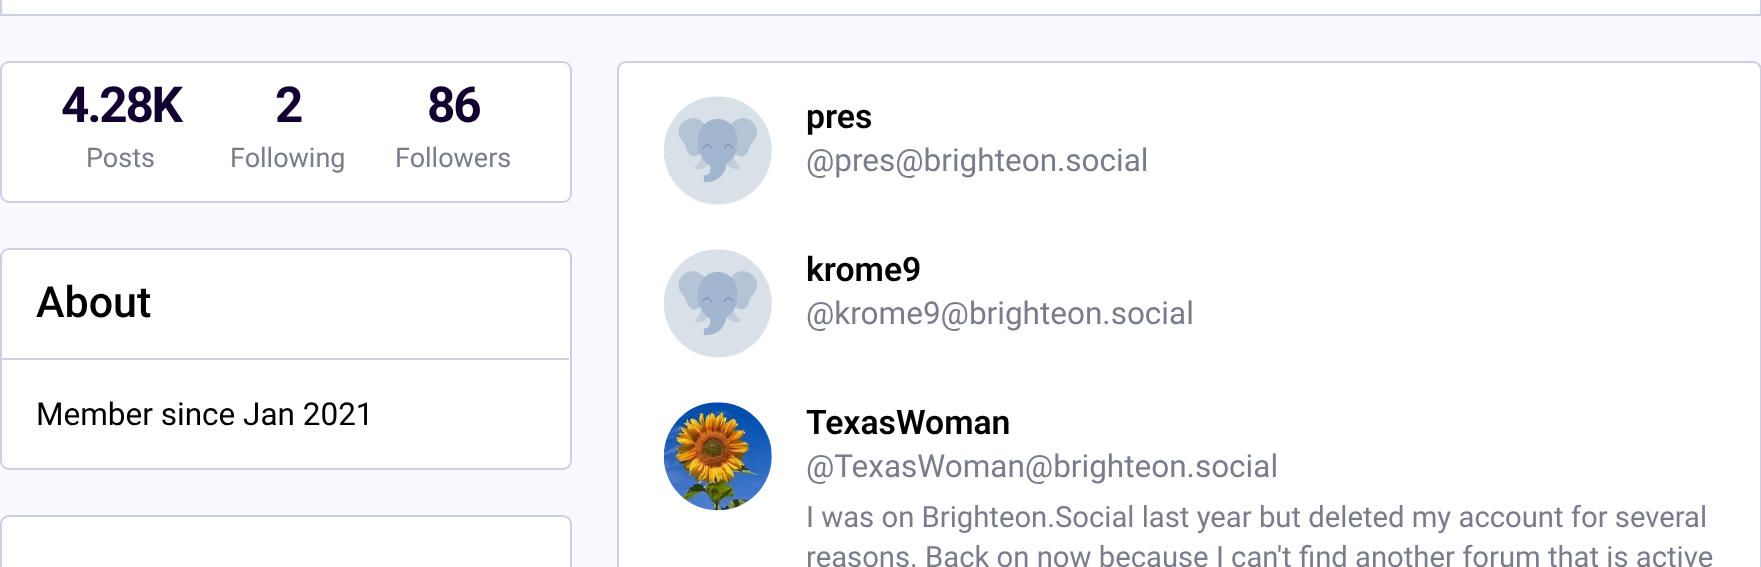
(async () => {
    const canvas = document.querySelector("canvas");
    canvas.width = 1761;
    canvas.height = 567;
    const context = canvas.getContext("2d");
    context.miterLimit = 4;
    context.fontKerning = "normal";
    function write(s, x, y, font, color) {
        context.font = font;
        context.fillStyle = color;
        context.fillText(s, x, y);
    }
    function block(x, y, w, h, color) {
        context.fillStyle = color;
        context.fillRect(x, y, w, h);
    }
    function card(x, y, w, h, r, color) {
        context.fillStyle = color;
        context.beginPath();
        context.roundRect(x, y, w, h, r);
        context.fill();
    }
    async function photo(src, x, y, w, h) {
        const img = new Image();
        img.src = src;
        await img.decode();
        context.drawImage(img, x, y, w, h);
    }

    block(0, 0, 1761, 567, "rgb(247, 249, 255)");
    context.strokeStyle = "rgb(204, 208, 228)";
    context.lineWidth = 2;
    context.strokeRect(1, -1, 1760, 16);
    card(2, -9, 1758, 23, 9, "rgb(255, 255, 255)");
    context.beginPath();
    context.roundRect(1, 62, 570, 140, 8);
    context.fill();
    context.stroke();
    context.letterSpacing = "-2.25px";
    write("4.28K", 61, 122, "bold 49.5px Roboto", "rgb(18, 1, 48)");
    context.letterSpacing = "0px";
    write("Posts", 86, 167, "27px Roboto", "rgb(121, 124, 139)");
    context.letterSpacing = "-2.25px";
    write("2", 275, 122, "bold 49.5px Roboto", "rgb(18, 1, 48)");
    context.letterSpacing = "0px";
    write("Following", 230, 167, "27px Roboto", "rgb(121, 124, 139)");
    context.letterSpacing = "-2.25px";
    write("86", 427, 122, "bold 49.5px Roboto", "rgb(18, 1, 48)");
    context.letterSpacing = "0px";
    write("Followers", 395, 167, "27px Roboto", "rgb(121, 124, 139)");
    context.fillStyle = "rgb(255, 255, 255)";
    context.beginPath();
    context.roundRect(1, 249, 570, 220, 8);
    context.fill();
    context.stroke();
    block(2, 358, 567, 2, "rgb(204, 208, 228)");
    write("About", 36, 317, "500 43px Roboto", "rgb(0, 0, 0)");
    write("Member since Jan 2021", 36, 425, "31.5px Roboto", "rgb(0, 0, 0)");
    context.fillStyle = "rgb(255, 255, 255)";
    context.beginPath();
    context.roundRect(1, 516, 570, 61, 8);
    context.fill();
    context.stroke();
    context.beginPath();
    context.roundRect(618, 62, 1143, 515, 8);
    context.fill();
    context.stroke();
    context.fillStyle = "rgb(242, 245, 247)";
    context.beginPath();
    context.arc(718, 151, 54, 0, Math.PI * 2);
    context.fill();
    await photo("media/1.png", 664, 96, 108, 108);
    write("pres", 806, 128, "600 33.75px Roboto", "rgb(0, 0, 0)");
    write("@pres@brighteon.social", 806, 171, "31.5px Roboto", "rgb(121, 124, 139)");
    context.fillStyle = "rgb(242, 245, 247)";
    context.beginPath();
    context.arc(718, 304, 54, 0, Math.PI * 2);
    context.fill();
    await photo("media/1.png", 664, 249, 108, 108);
    write("krome9", 806, 281, "600 33.75px Roboto", "rgb(0, 0, 0)");
    write("@krome9@brighteon.social", 806, 324, "31.5px Roboto", "rgb(121, 124, 139)");
    context.fillStyle = "rgb(242, 245, 247)";
    context.beginPath();
    context.arc(718, 457, 54, 0, Math.PI * 2);
    context.fill();
    await photo("media/2.png", 663, 402, 109, 109);
    write("TexasWoman", 806, 434, "600 33.75px Roboto", "rgb(0, 0, 0)");
    write("@TexasWoman@brighteon.social", 806, 477, "31.5px Roboto", "rgb(121, 124, 139)");
    write("I was on Brighteon.Social last year but deleted my account for several", 806, 527, "29.25px Roboto", "rgb(121, 124, 139)");
    write("reasons. Back on now because I can't find another forum that is active", 806, 567, "29.25px Roboto", "rgb(121, 124, 139)");
})();
